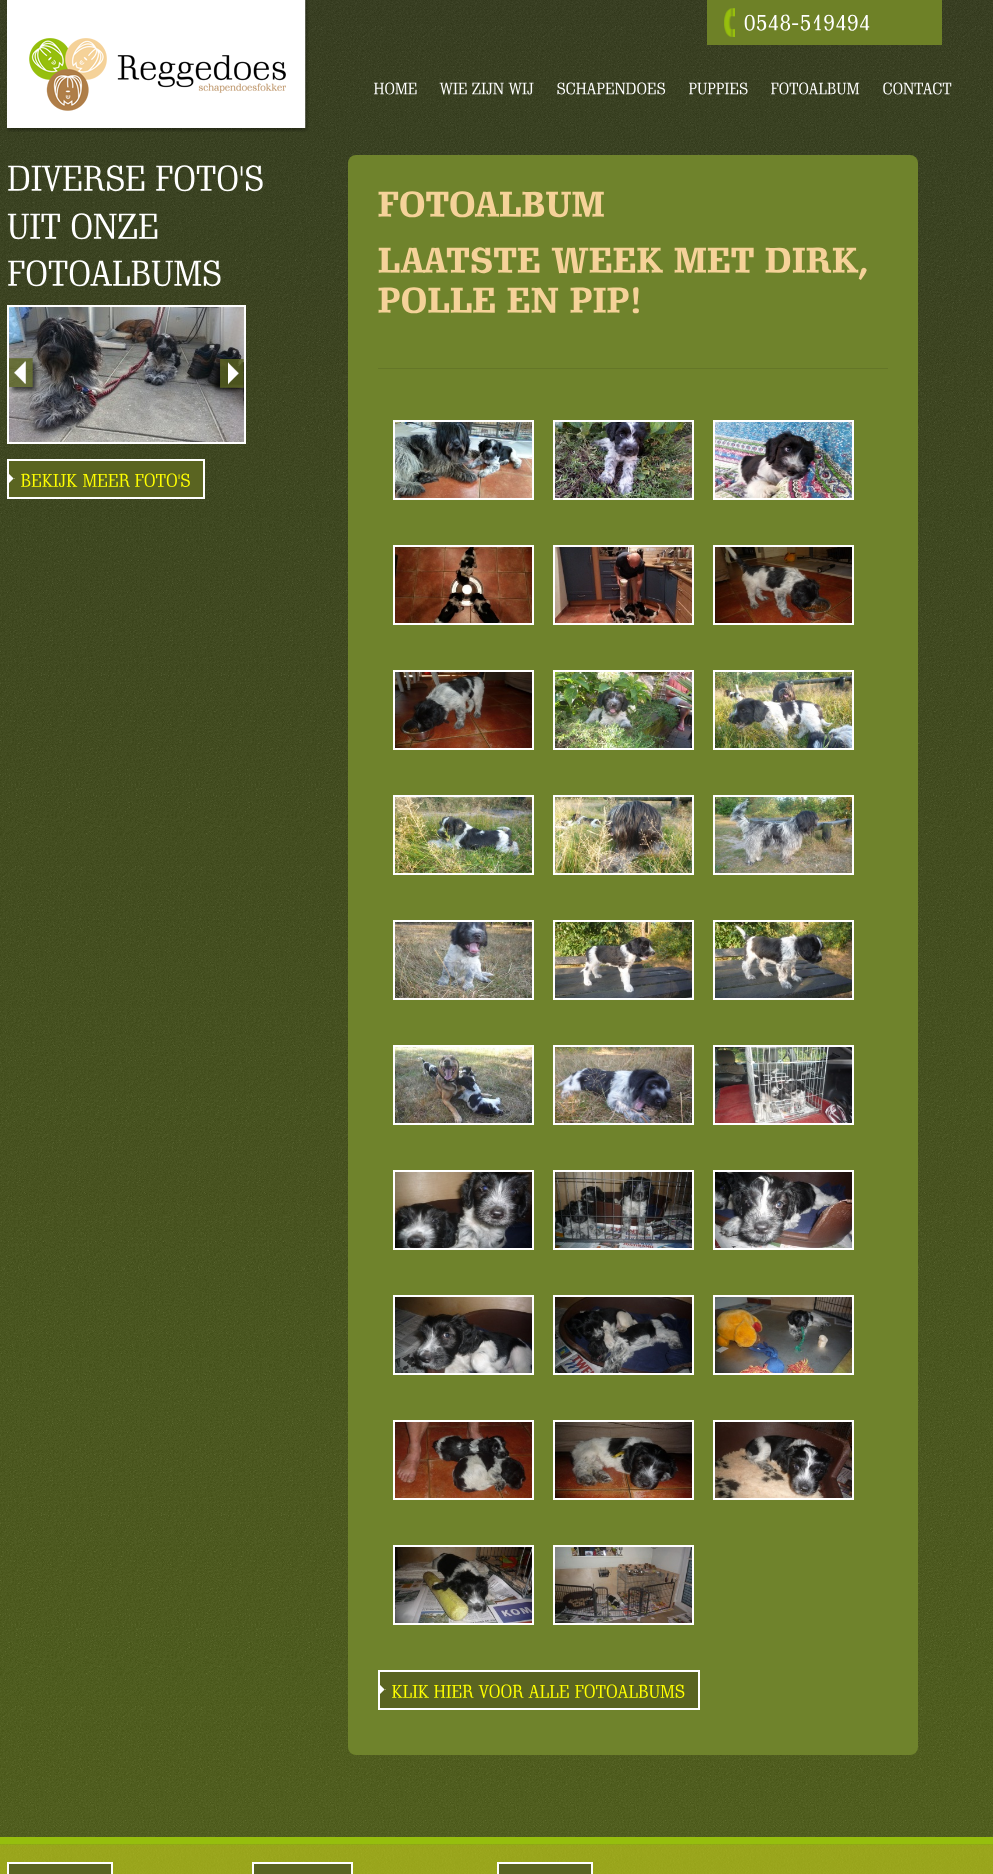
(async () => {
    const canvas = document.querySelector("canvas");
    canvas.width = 993;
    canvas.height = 1874;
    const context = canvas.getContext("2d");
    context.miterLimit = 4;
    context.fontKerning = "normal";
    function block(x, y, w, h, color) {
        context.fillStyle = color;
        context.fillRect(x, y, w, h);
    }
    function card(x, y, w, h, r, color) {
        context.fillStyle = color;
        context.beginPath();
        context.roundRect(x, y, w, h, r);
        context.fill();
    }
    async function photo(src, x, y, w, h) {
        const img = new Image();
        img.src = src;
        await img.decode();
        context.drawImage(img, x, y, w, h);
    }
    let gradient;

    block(0, 0, 993, 1874, "rgb(255, 255, 255)");
    gradient = context.createLinearGradient(496, 0, 497, 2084);
    gradient.addColorStop(0, "rgb(58, 66, 32)");
    gradient.addColorStop(1, "rgb(91, 109, 27)");
    context.fillStyle = gradient;
    context.fillRect(0, 0, 993, 1837);
    await photo("media/1.png", 0, 0, 993, 1837);
    await photo("media/2.png", 7, 0, 302, 132);
    block(707, 0, 235, 45, "rgb(110, 129, 39)");
    await photo("media/3.png", 724, 8, 11, 29);
    await photo("media/4.png", 744, 14, 126, 17);
    await photo("media/5.png", 374, 82, 43, 13);
    await photo("media/6.png", 439, 82, 28, 13);
    await photo("media/7.png", 472, 82, 32, 13);
    await photo("media/8.png", 508, 82, 26, 13);
    await photo("media/9.png", 557, 82, 109, 13);
    await photo("media/10.png", 689, 82, 59, 13);
    await photo("media/11.png", 771, 82, 89, 13);
    await photo("media/12.png", 883, 82, 69, 13);
    await photo("media/13.png", 8, 165, 137, 27);
    await photo("media/14.png", 156, 165, 107, 27);
    await photo("media/15.png", 7, 213, 53, 27);
    await photo("media/16.png", 71, 213, 87, 27);
    await photo("media/17.png", 8, 260, 213, 27);
    context.strokeStyle = "rgb(255, 255, 255)";
    context.lineWidth = 2;
    context.strokeRect(8, 306, 237, 137);
    await photo("media/18.png", 9, 307, 235, 135);
    await photo("media/19.png", 9, 358, 30, 37);
    await photo("media/20.png", 212, 358, 32, 35);
    block(9, 461, 194, 36, "rgb(90, 100, 33)");
    await photo("media/21.png", 9, 474, 6, 9);
    context.strokeRect(8, 460, 196, 38);
    await photo("media/22.png", 21, 473, 57, 14);
    await photo("media/23.png", 83, 473, 47, 14);
    await photo("media/24.png", 135, 473, 55, 14);
    card(348, 155, 570, 1600, 8, "rgb(111, 131, 44)");
    await photo("media/25.png", 378, 191, 226, 27);
    await photo("media/26.png", 378, 247, 162, 27);
    await photo("media/27.png", 551, 247, 112, 27);
    await photo("media/28.png", 674, 247, 80, 26);
    await photo("media/29.png", 765, 247, 102, 33);
    await photo("media/30.png", 378, 287, 117, 27);
    await photo("media/31.png", 507, 287, 52, 26);
    await photo("media/32.png", 570, 287, 69, 27);
    block(378, 368, 510, 1, "rgb(100, 118, 40)");
    context.strokeRect(394, 421, 139, 78);
    await photo("media/33.png", 395, 422, 137, 76);
    context.strokeRect(554, 421, 139, 78);
    await photo("media/34.png", 555, 422, 137, 76);
    context.strokeRect(714, 421, 139, 78);
    await photo("media/35.png", 715, 422, 137, 76);
    context.strokeRect(394, 546, 139, 78);
    await photo("media/36.png", 395, 547, 137, 76);
    context.strokeRect(554, 546, 139, 78);
    await photo("media/37.png", 555, 547, 137, 76);
    context.strokeRect(714, 546, 139, 78);
    await photo("media/38.png", 715, 547, 137, 76);
    context.strokeRect(394, 671, 139, 78);
    await photo("media/39.png", 395, 672, 137, 76);
    context.strokeRect(554, 671, 139, 78);
    await photo("media/40.png", 555, 672, 137, 76);
    context.strokeRect(714, 671, 139, 78);
    await photo("media/41.png", 715, 672, 137, 76);
    context.strokeRect(394, 796, 139, 78);
    await photo("media/42.png", 395, 797, 137, 76);
    context.strokeRect(554, 796, 139, 78);
    await photo("media/43.png", 555, 797, 137, 76);
    context.strokeRect(714, 796, 139, 78);
    await photo("media/44.png", 715, 797, 137, 76);
    context.strokeRect(394, 921, 139, 78);
    await photo("media/45.png", 395, 922, 137, 76);
    context.strokeRect(554, 921, 139, 78);
    await photo("media/46.png", 555, 922, 137, 76);
    context.strokeRect(714, 921, 139, 78);
    await photo("media/47.png", 715, 922, 137, 76);
    context.strokeRect(394, 1046, 139, 78);
    await photo("media/48.png", 395, 1047, 137, 76);
    context.strokeRect(554, 1046, 139, 78);
    await photo("media/49.png", 555, 1047, 137, 76);
    context.strokeRect(714, 1046, 139, 78);
    await photo("media/50.png", 715, 1047, 137, 76);
    context.strokeRect(394, 1171, 139, 78);
    await photo("media/51.png", 395, 1172, 137, 76);
    context.strokeRect(554, 1171, 139, 78);
    await photo("media/52.png", 555, 1172, 137, 76);
    context.strokeRect(714, 1171, 139, 78);
    await photo("media/53.png", 715, 1172, 137, 76);
    context.strokeRect(394, 1296, 139, 78);
    await photo("media/54.png", 395, 1297, 137, 76);
    context.strokeRect(554, 1296, 139, 78);
    await photo("media/55.png", 555, 1297, 137, 76);
    context.strokeRect(714, 1296, 139, 78);
    await photo("media/56.png", 715, 1297, 137, 76);
    context.strokeRect(394, 1421, 139, 78);
    await photo("media/57.png", 395, 1422, 137, 76);
    context.strokeRect(554, 1421, 139, 78);
    await photo("media/58.png", 555, 1422, 137, 76);
    context.strokeRect(714, 1421, 139, 78);
    await photo("media/59.png", 715, 1422, 137, 76);
    context.strokeRect(394, 1546, 139, 78);
    await photo("media/60.png", 395, 1547, 137, 76);
    context.strokeRect(554, 1546, 139, 78);
    await photo("media/61.png", 555, 1547, 137, 76);
    block(380, 1672, 318, 36, "rgb(90, 100, 33)");
    await photo("media/21.png", 380, 1685, 6, 9);
    context.strokeRect(379, 1671, 320, 38);
    await photo("media/62.png", 392, 1685, 37, 13);
    await photo("media/63.png", 434, 1684, 40, 14);
    await photo("media/64.png", 478, 1684, 46, 14);
    await photo("media/65.png", 528, 1685, 41, 13);
    await photo("media/66.png", 575, 1684, 110, 14);
    await photo("media/67.png", 0, 1837, 993, 37);
    context.beginPath();
    context.rect(8, 1863, 104, 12);
    context.fill();
    context.stroke();
    context.beginPath();
    context.rect(253, 1863, 99, 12);
    context.fill();
    context.stroke();
    context.beginPath();
    context.rect(498, 1863, 94, 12);
    context.fill();
    context.stroke();
})();
